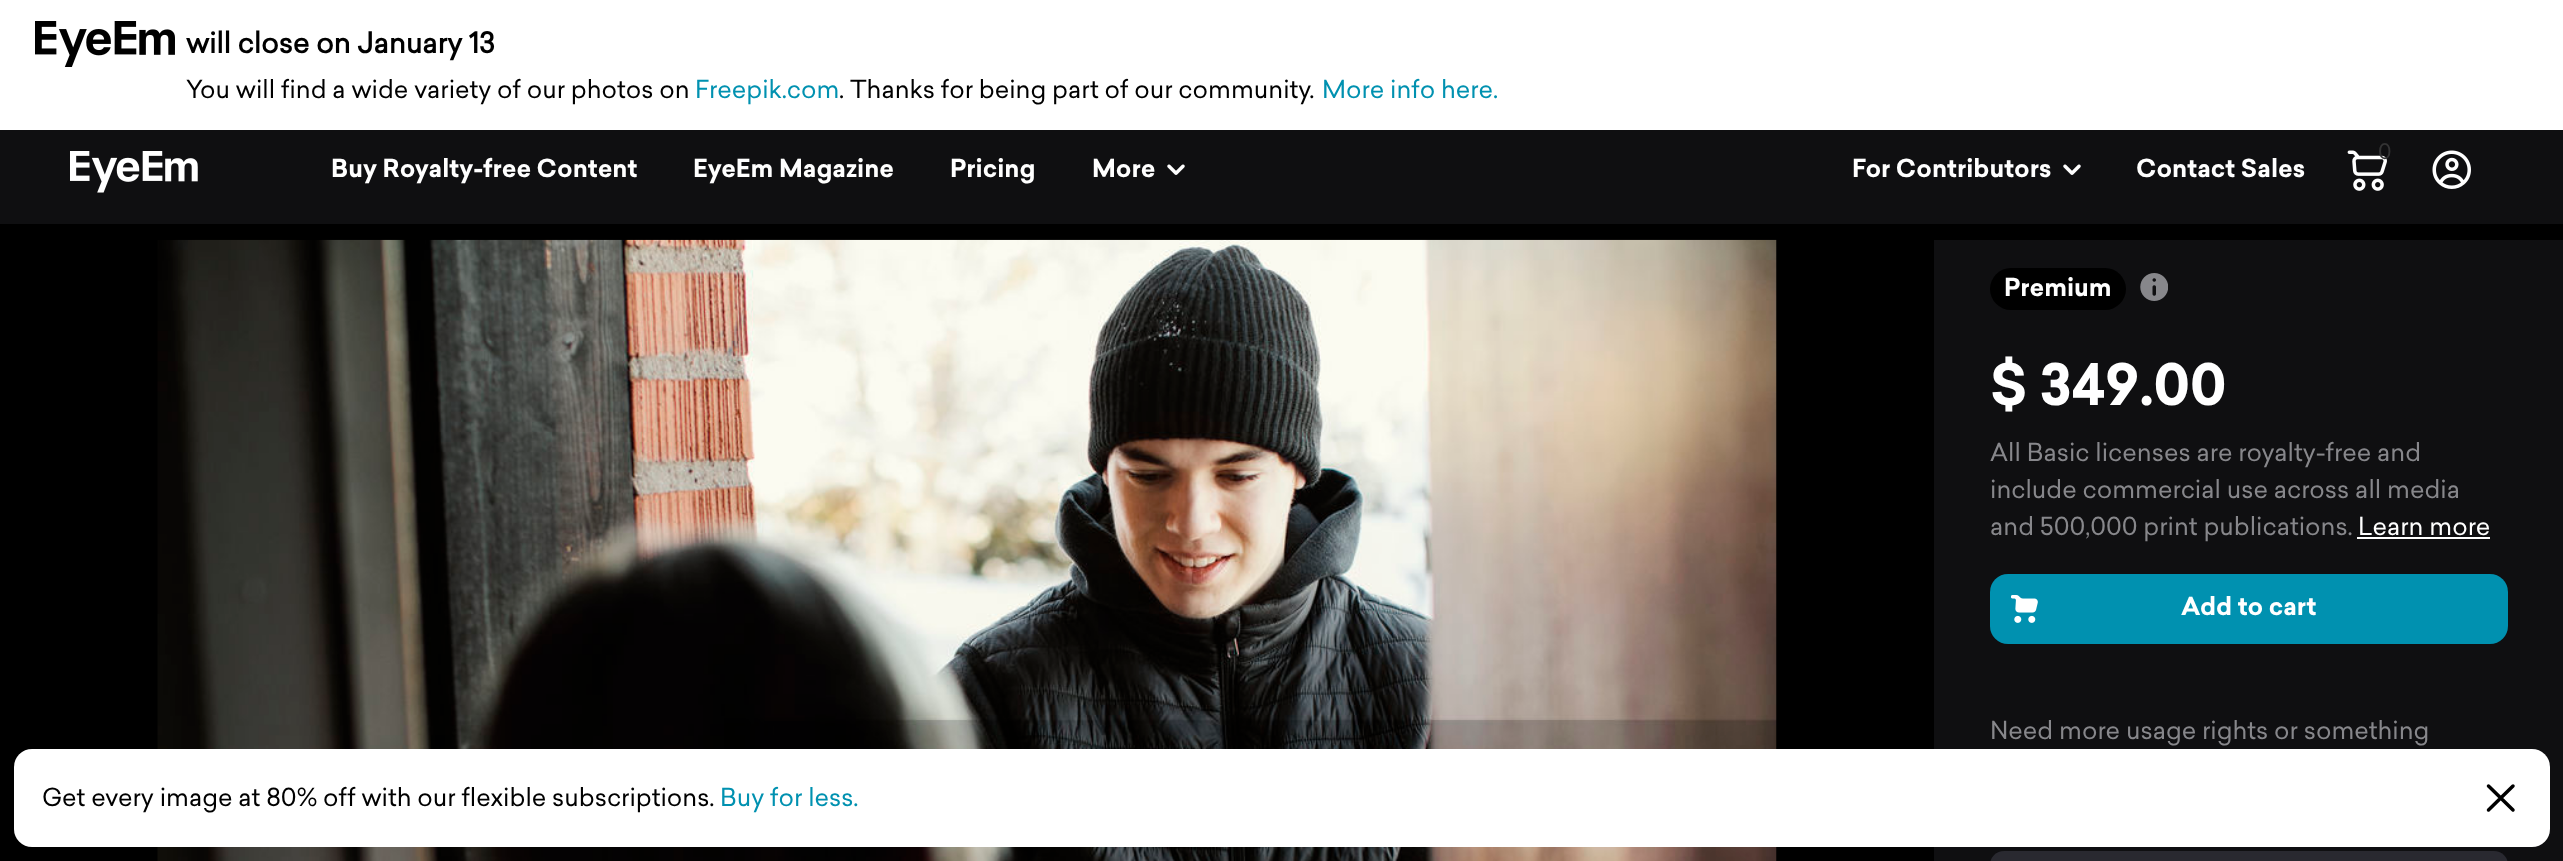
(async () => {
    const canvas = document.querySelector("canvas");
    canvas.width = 2563;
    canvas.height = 861;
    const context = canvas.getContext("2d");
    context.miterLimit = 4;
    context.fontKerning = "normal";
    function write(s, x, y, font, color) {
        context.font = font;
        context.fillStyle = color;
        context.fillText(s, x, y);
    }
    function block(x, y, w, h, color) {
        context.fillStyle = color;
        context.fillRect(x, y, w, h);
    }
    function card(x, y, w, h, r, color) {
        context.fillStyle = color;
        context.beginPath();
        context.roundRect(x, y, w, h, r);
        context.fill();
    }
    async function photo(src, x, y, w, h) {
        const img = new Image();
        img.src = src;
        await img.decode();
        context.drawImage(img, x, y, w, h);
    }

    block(0, 0, 2563, 861, "rgb(0, 0, 0)");
    block(0, 0, 2563, 130, "rgb(255, 255, 255)");
    await photo("media/1.png", 35, 21, 140, 46);
    write("will close on January 13", 186, 53, "bold 28px 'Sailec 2'", "rgb(0, 0, 0)");
    write("You will find a wide variety of our photos on", 186, 98, "24.5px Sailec", "rgb(0, 0, 0)");
    write("Freepik.com", 695, 98, "24.5px Sailec", "rgb(0, 145, 176)");
    write(". Thanks for being part of our community.", 839, 98, "24.5px Sailec", "rgb(0, 0, 0)");
    write("More info here.", 1322, 98, "24.5px Sailec", "rgb(0, 145, 176)");
    block(0, 130, 2563, 94, "rgb(15, 15, 17)");
    await photo("media/2.png", 70, 151, 128, 42);
    write("Buy Royalty-free Content", 331, 177, "bold 24.5px Sailec", "rgb(255, 255, 255)");
    write("EyeEm Magazine", 693, 177, "bold 24.5px Sailec", "rgb(255, 255, 255)");
    write("Pricing", 950, 177, "bold 24.5px Sailec", "rgb(255, 255, 255)");
    write("More", 1092, 177, "bold 24.5px Sailec", "rgb(255, 255, 255)");
    await photo("media/3.png", 1167, 164, 18, 11);
    write("For Contributors", 1852, 177, "bold 24.5px Sailec", "rgb(255, 255, 255)");
    await photo("media/3.png", 2063, 164, 18, 11);
    write("Contact Sales", 2136, 177, "bold 24.5px Sailec", "rgb(255, 255, 255)");
    await photo("media/4.png", 2347, 150, 40, 41);
    write("0", 2378, 159, "21px Sailec", "rgb(51, 51, 52)");
    await photo("media/5.png", 2432, 150, 39, 39);
    await photo("media/6.png", 157, 239, 1620, 622);
    block(1934, 240, 629, 621, "rgb(15, 15, 17)");
    card(1990, 268, 136, 42, 21, "rgb(0, 0, 0)");
    write("Premium", 2004, 296, "bold 24.5px Sailec", "rgb(255, 255, 255)");
    await photo("media/7.png", 2140, 273, 28, 28);
    write("$ 349.00", 1990, 405, "bold 56px Sailec", "rgb(255, 255, 255)");
    write("All Basic licenses are royalty-free and", 1990, 461, "24.5px Sailec", "rgb(135, 135, 139)");
    write("include commercial use across all media", 1990, 498, "24.5px Sailec", "rgb(135, 135, 139)");
    write("and 500,000 print publications.", 1990, 535, "24.5px Sailec", "rgb(135, 135, 139)");
    write("Learn more", 2358, 535, "24.5px Sailec", "rgb(255, 255, 255)");
    block(2357, 537, 133, 2, "rgb(255, 255, 255)");
    card(1990, 574, 518, 70, 18, "rgb(0, 145, 176)");
    await photo("media/8.png", 2011, 595, 27, 28);
    write("Add to cart", 2181, 615, "bold 24.5px Sailec", "rgb(255, 255, 255)");
    write("Need more usage rights or something", 1990, 739, "24.5px Sailec", "rgb(135, 135, 139)");
    card(1990, 851, 518, 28, 18, "rgb(41, 41, 48)");
    card(14, 749, 2536, 98, 18, "rgb(255, 255, 255)");
    write("Get every image at 80% off with our flexible subscriptions.", 42, 806, "24.5px Sailec", "rgb(0, 0, 0)");
    write("Buy for less.", 720, 806, "24.5px Sailec", "rgb(0, 145, 176)");
    context.beginPath();
    context.moveTo(2513, 786);
    context.lineTo(2488.5, 810);
    context.moveTo(2488.5, 786);
    context.lineTo(2513, 810);
    context.strokeStyle = "rgb(0, 0, 0)";
    context.lineWidth = 3.5;
    context.lineCap = "round";
    context.lineJoin = "round";
    context.stroke();
})();
